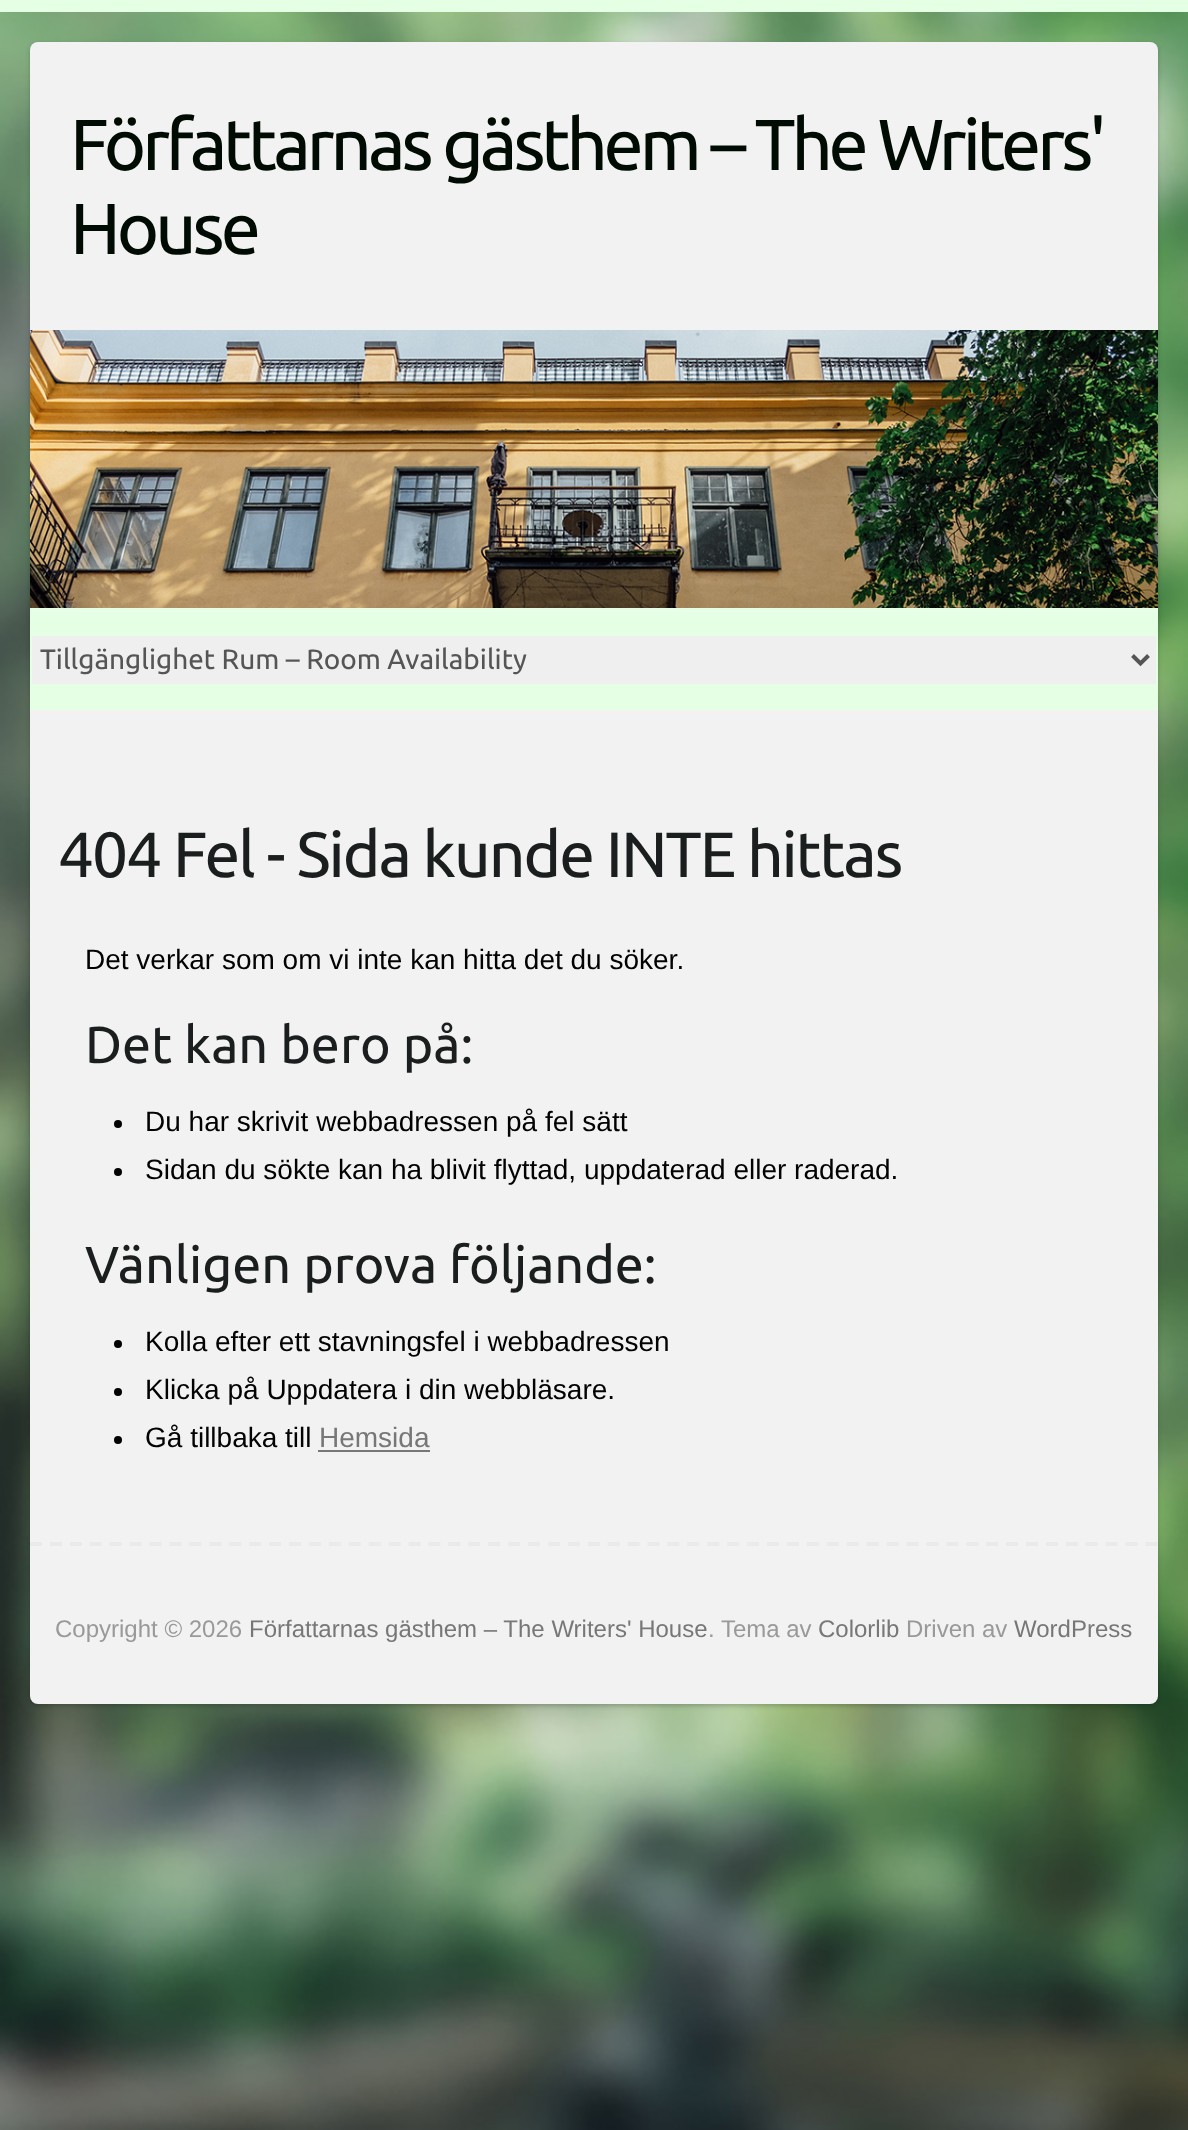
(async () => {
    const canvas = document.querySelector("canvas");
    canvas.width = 1188;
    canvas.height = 2130;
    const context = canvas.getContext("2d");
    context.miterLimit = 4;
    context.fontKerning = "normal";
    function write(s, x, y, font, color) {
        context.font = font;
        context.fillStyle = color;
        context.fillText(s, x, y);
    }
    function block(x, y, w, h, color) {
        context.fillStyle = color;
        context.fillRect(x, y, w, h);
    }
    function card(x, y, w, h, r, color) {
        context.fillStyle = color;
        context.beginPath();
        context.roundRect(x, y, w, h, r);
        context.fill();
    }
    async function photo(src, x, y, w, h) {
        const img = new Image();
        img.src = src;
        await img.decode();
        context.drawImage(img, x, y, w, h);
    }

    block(0, 0, 1188, 2130, "rgb(255, 255, 255)");
    await photo("media/1.png", 0, 12, 1188, 2118);
    block(0, 0, 1188, 12, "rgb(229, 255, 229)");
    context.fillStyle = "rgba(0, 0, 0, 0.2)";
    context.filter = "blur(2px)";
    context.beginPath();
    context.roundRect(30, 44, 1128, 1662, 8);
    context.fill();
    context.filter = "none";
    card(30, 42, 1128, 1662, 8, "rgb(242, 242, 242)");
    context.letterSpacing = "-4px";
    write("Författarnas gästhem – The Writers'", 70, 170, "72px Ubuntu", "rgb(0, 12, 3)");
    write("House", 70, 254, "72px Ubuntu", "rgb(0, 12, 3)");
    await photo("media/2.png", 30, 330, 1128, 278);
    block(30, 608, 1128, 102, "rgb(229, 255, 229)");
    block(32, 610, 1124, 2, "rgb(234, 255, 234)");
    block(32, 636, 1124, 48, "rgb(239, 239, 239)");
    context.beginPath();
    context.moveTo(1132.5, 655.5);
    context.lineTo(1140.5, 663.5);
    context.lineTo(1148.5, 655.5);
    context.strokeStyle = "rgb(85, 85, 85)";
    context.lineWidth = 4;
    context.stroke();
    context.letterSpacing = "0px";
    write("Tillgänglighet Rum – Room Availability", 40, 669, "28px Ubuntu", "rgb(85, 85, 85)");
    context.letterSpacing = "-2px";
    write("404 Fel - Sida kunde INTE hittas", 58, 877, "64px Ubuntu", "rgb(27, 30, 31)");
    context.letterSpacing = "0px";
    write("Det verkar som om vi inte kan hitta det du söker.", 85, 969, "28px Liberation Sans", "rgb(2, 2, 2)");
    write("Det kan bero på:", 85, 1063, "52px Ubuntu", "rgb(27, 30, 31)");
    context.fillStyle = "rgb(2, 2, 2)";
    context.beginPath();
    context.arc(118, 1124, 4, 0, Math.PI * 2);
    context.fill();
    write("Du har skrivit webbadressen på fel sätt", 145, 1131, "28px Liberation Sans", "rgb(2, 2, 2)");
    context.beginPath();
    context.arc(118, 1172, 4, 0, Math.PI * 2);
    context.fill();
    write("Sidan du sökte kan ha blivit flyttad, uppdaterad eller raderad.", 145, 1179, "28px Liberation Sans", "rgb(2, 2, 2)");
    write("Vänligen prova följande:", 85, 1283, "52px Ubuntu", "rgb(27, 30, 31)");
    context.fillStyle = "rgb(2, 2, 2)";
    context.beginPath();
    context.arc(118, 1344, 4, 0, Math.PI * 2);
    context.fill();
    write("Kolla efter ett stavningsfel i webbadressen", 145, 1351, "28px Liberation Sans", "rgb(2, 2, 2)");
    context.beginPath();
    context.arc(118, 1392, 4, 0, Math.PI * 2);
    context.fill();
    write("Klicka på Uppdatera i din webbläsare.", 145, 1399, "28px Liberation Sans", "rgb(2, 2, 2)");
    context.beginPath();
    context.arc(118, 1440, 4, 0, Math.PI * 2);
    context.fill();
    write("Gå tillbaka till", 145, 1447, "28px Liberation Sans", "rgb(2, 2, 2)");
    write("Hemsida", 319, 1447, "28px Liberation Sans", "rgb(119, 119, 119)");
    block(318, 1450, 112, 2, "rgb(119, 119, 119)");
    context.beginPath();
    context.moveTo(30, 1544);
    context.lineTo(1158, 1544);
    context.strokeStyle = "rgb(234, 234, 234)";
    context.setLineDash([12, 7.92]);
    context.stroke();
    write("Copyright © 2026", 55, 1637, "24px Liberation Sans", "rgb(153, 153, 153)");
    write("Författarnas gästhem – The Writers' House", 249, 1637, "24px Liberation Sans", "rgb(119, 119, 119)");
    write(". Tema av", 708, 1637, "24px Liberation Sans", "rgb(153, 153, 153)");
    write("Colorlib", 818, 1637, "24px Liberation Sans", "rgb(119, 119, 119)");
    write("Driven av", 906, 1637, "24px Liberation Sans", "rgb(153, 153, 153)");
    write("WordPress", 1014, 1637, "24px Liberation Sans", "rgb(119, 119, 119)");
})();
